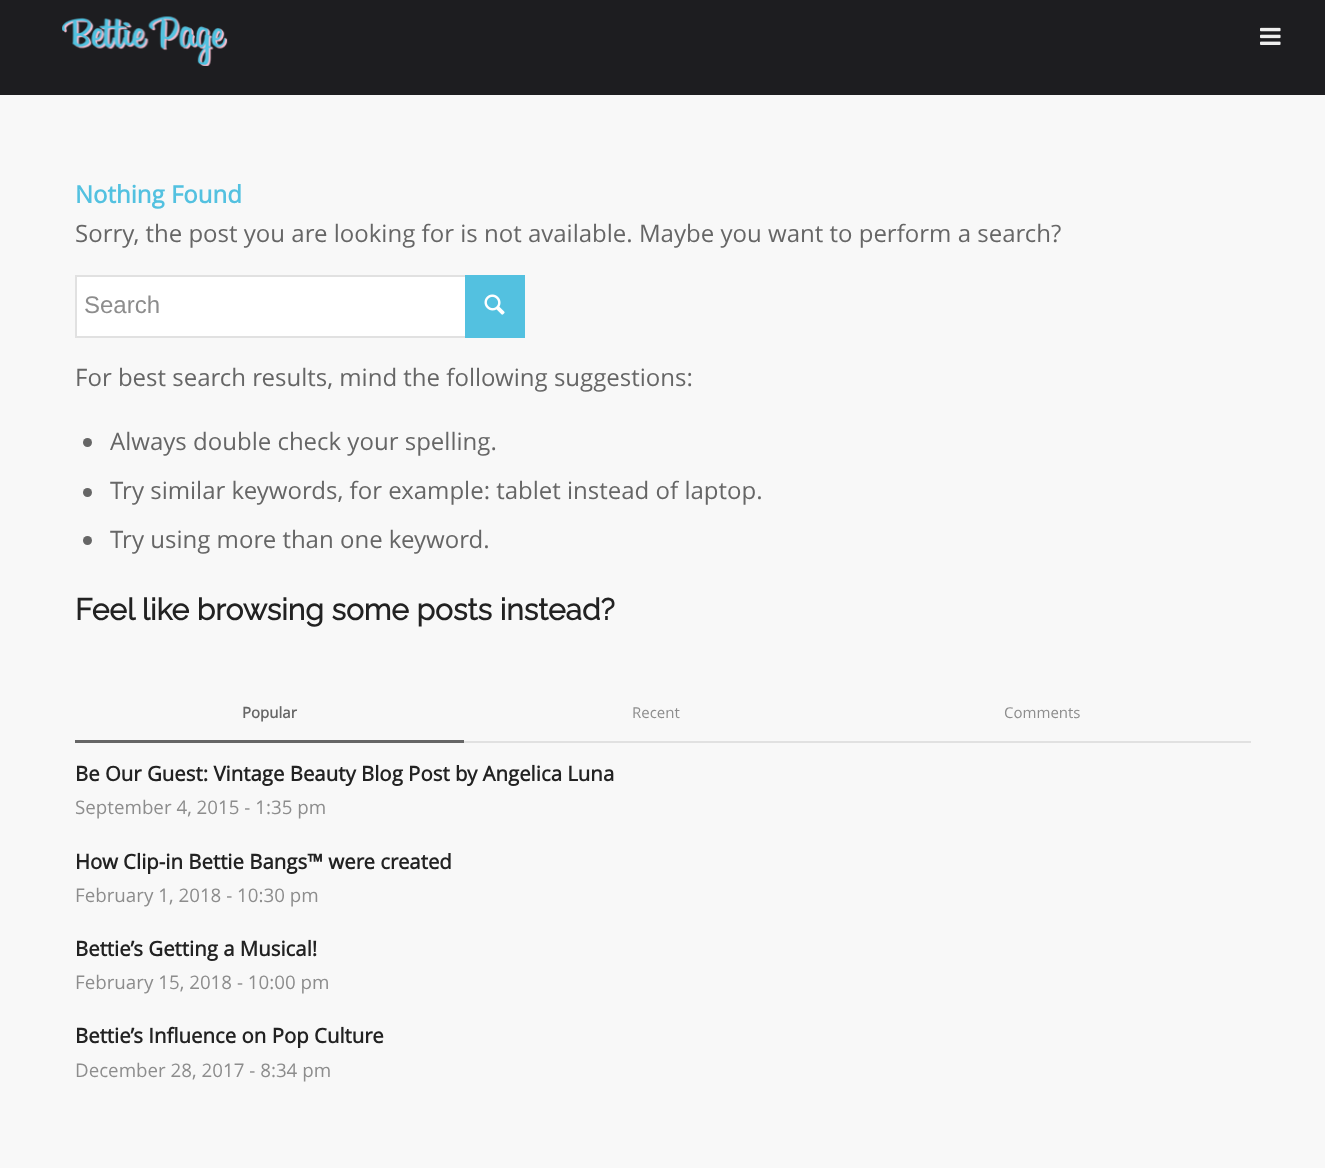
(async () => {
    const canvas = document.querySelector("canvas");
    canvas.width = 1325;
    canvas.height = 1168;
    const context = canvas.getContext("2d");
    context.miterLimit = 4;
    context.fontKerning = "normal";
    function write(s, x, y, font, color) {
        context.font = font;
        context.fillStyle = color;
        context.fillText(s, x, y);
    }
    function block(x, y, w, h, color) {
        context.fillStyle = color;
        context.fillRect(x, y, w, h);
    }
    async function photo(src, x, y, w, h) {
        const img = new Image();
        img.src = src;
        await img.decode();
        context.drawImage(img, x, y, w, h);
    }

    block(0, 0, 1325, 1168, "rgb(248, 248, 248)");
    block(0, 0, 1325, 95, "rgb(29, 29, 32)");
    await photo("media/1.png", 62, 16, 166, 50);
    await photo("media/2.png", 1260, 27, 21, 18);
    write("Nothing Found", 75, 203, "bold 24px Open Sans", "rgb(83, 193, 224)");
    write("Sorry, the post you are looking for is not available. Maybe you want to perform a search?", 75, 242, "24px Open Sans", "rgb(102, 102, 102)");
    block(77, 277, 388, 59, "rgb(255, 255, 255)");
    context.strokeStyle = "rgb(225, 225, 225)";
    context.lineWidth = 2;
    context.strokeRect(76, 276, 448, 61);
    write("Search", 84, 313, "24px Liberation Sans", "rgb(141, 141, 141)");
    block(465, 275, 60, 63, "rgb(83, 193, 224)");
    await photo("media/3.png", 484, 294, 21, 21);
    write("For best search results, mind the following suggestions:", 75, 386, "24px Open Sans", "rgb(102, 102, 102)");
    context.beginPath();
    context.arc(87.5, 442.5, 4.5, 0, Math.PI * 2);
    context.fill();
    write("Always double check your spelling.", 110, 450, "24px Open Sans", "rgb(102, 102, 102)");
    context.beginPath();
    context.arc(87.5, 492.5, 4.5, 0, Math.PI * 2);
    context.fill();
    write("Try similar keywords, for example: tablet instead of laptop.", 110, 499, "24px Open Sans", "rgb(102, 102, 102)");
    context.beginPath();
    context.arc(87.5, 540.5, 4.5, 0, Math.PI * 2);
    context.fill();
    write("Try using more than one keyword.", 110, 548, "24px Open Sans", "rgb(102, 102, 102)");
    write("Feel like browsing some posts instead?", 75, 620, "bold 30px Raleway", "rgb(34, 34, 34)");
    block(464, 741, 787, 2, "rgb(225, 225, 225)");
    block(75, 740, 389, 3, "rgb(102, 102, 102)");
    write("Popular", 242, 718, "bold 15px Open Sans", "rgb(102, 102, 102)");
    write("Recent", 632, 718, "15px Open Sans", "rgb(141, 141, 141)");
    write("Comments", 1004, 718, "15px Open Sans", "rgb(141, 141, 141)");
    write("Be Our Guest: Vintage Beauty Blog Post by Angelica Luna", 75, 781, "bold 20.4px Open Sans", "rgb(34, 34, 34)");
    write("September 4, 2015 - 1:35 pm", 75, 814, "18.75px Open Sans", "rgb(141, 141, 141)");
    write("How Clip-in Bettie Bangs™ were created", 75, 869, "bold 20.4px Open Sans", "rgb(34, 34, 34)");
    write("February 1, 2018 - 10:30 pm", 75, 902, "18.75px Open Sans", "rgb(141, 141, 141)");
    write("Bettie’s Getting a Musical!", 75, 956, "bold 20.4px Open Sans", "rgb(34, 34, 34)");
    write("February 15, 2018 - 10:00 pm", 75, 989, "18.75px Open Sans", "rgb(141, 141, 141)");
    write("Bettie’s Influence on Pop Culture", 75, 1043, "bold 20.4px Open Sans", "rgb(34, 34, 34)");
    write("December 28, 2017 - 8:34 pm", 75, 1077, "18.75px Open Sans", "rgb(141, 141, 141)");
})();
